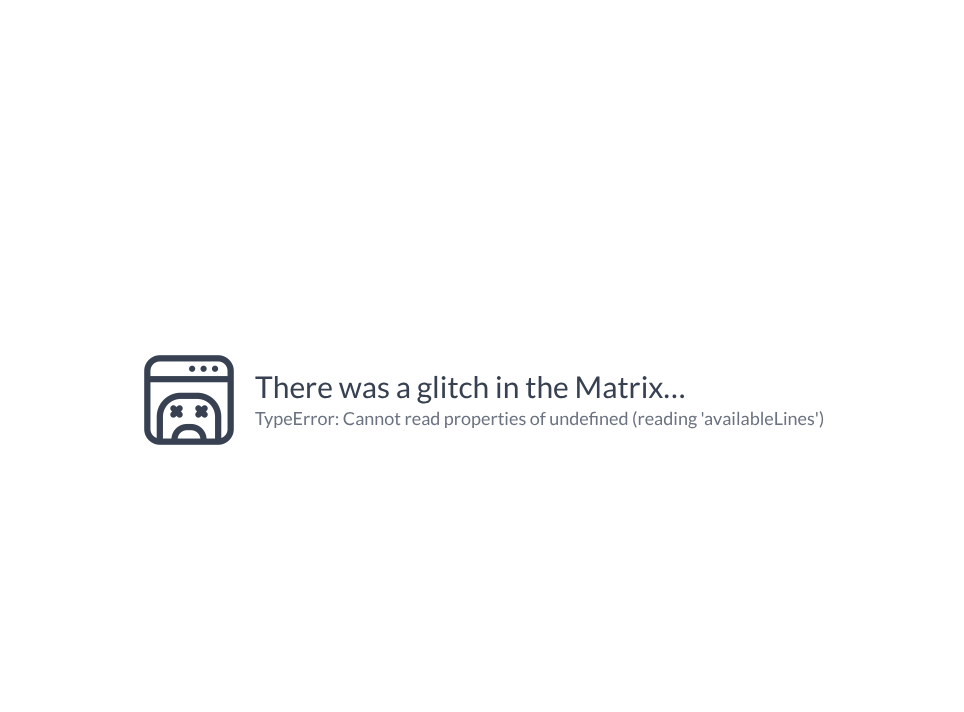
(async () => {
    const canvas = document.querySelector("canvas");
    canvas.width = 964;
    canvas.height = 712;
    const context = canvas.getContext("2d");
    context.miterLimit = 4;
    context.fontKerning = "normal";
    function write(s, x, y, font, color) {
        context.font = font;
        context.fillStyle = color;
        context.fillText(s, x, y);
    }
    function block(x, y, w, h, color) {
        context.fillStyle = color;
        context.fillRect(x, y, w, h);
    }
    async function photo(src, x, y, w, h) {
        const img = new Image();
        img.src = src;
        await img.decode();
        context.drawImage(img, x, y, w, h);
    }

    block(0, 0, 964, 712, "rgb(255, 255, 255)");
    await photo("media/1.png", 144, 355, 90, 90);
    write("There was a glitch in the Matrix…", 255, 398, "30px Lato", "rgb(55, 65, 81)");
    write("TypeError: Cannot read properties of undefined (reading 'availableLines')", 255, 425, "18px Lato", "rgb(107, 114, 128)");
})();
